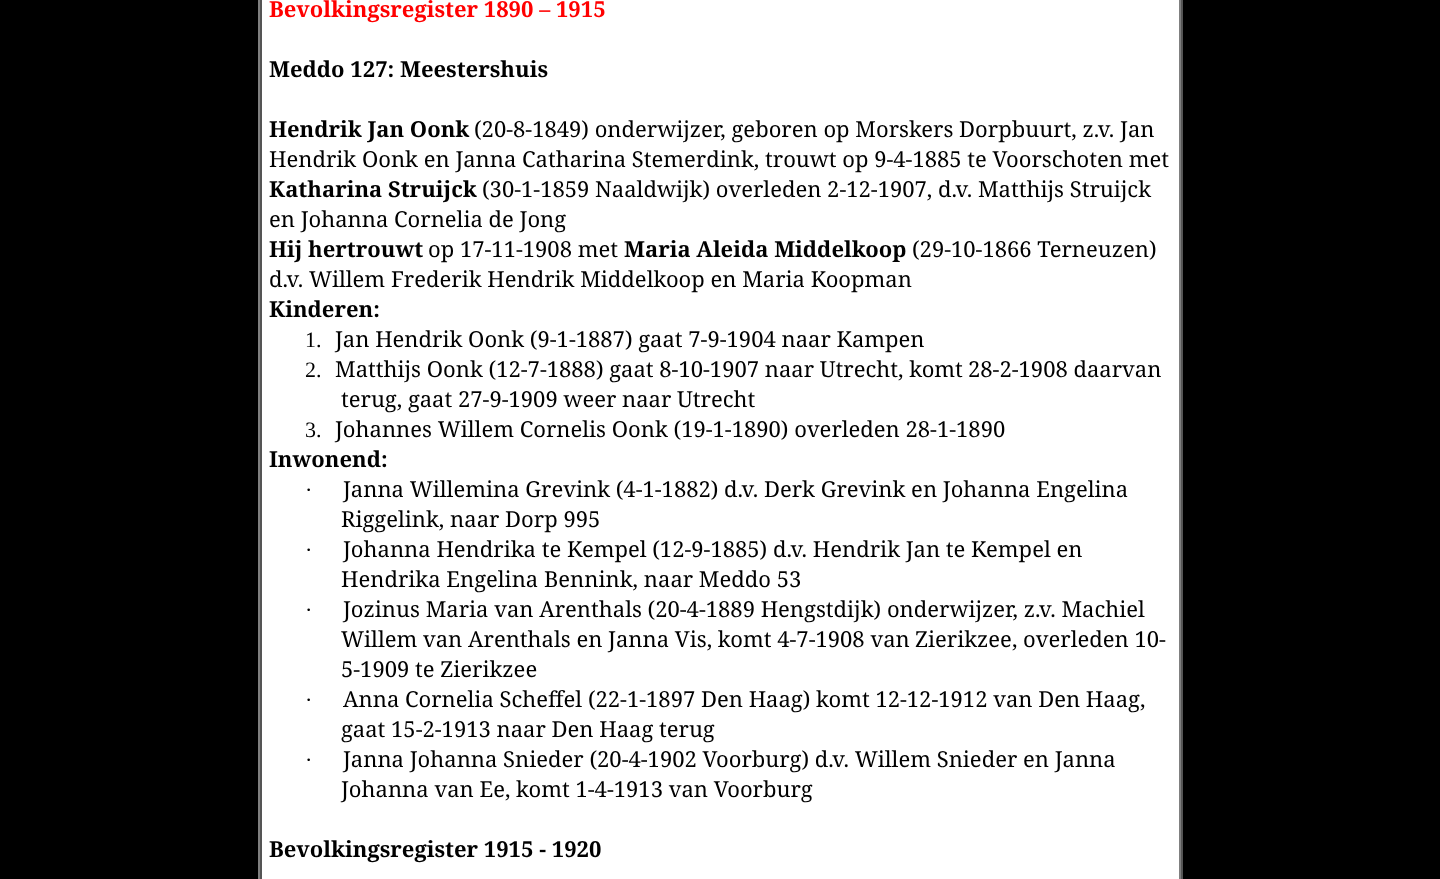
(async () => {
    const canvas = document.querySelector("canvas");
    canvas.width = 1440;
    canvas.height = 879;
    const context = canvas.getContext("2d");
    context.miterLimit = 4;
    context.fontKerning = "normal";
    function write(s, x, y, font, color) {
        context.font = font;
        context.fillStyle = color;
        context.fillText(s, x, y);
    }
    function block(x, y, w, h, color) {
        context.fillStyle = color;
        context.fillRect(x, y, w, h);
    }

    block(0, 0, 1440, 879, "rgb(0, 0, 0)");
    block(1181, 0, 2, 879, "rgb(85, 85, 85)");
    block(258, 0, 2, 879, "rgb(128, 128, 128)");
    block(262, 0, 917, 879, "rgb(255, 255, 255)");
    block(1179, 0, 2, 879, "rgb(128, 128, 128)");
    block(260, 0, 2, 879, "rgb(85, 85, 85)");
    write("Bevolkingsregister 1890 – 1915", 269, 17, "bold 22px Noto Serif", "rgb(255, 0, 0)");
    write("Meddo 127: Meestershuis", 269, 77, "bold 22px Noto Serif", "rgb(0, 0, 0)");
    write("Hendrik Jan Oonk", 269, 137, "bold 22px Noto Serif", "rgb(0, 0, 0)");
    write("(20-8-1849) onderwijzer, geboren op Morskers Dorpbuurt, z.v. Jan", 474, 137, "22px Noto Serif", "rgb(0, 0, 0)");
    write("Hendrik Oonk en Janna Catharina Stemerdink, trouwt op 9-4-1885 te Voorschoten met", 269, 167, "22px Noto Serif", "rgb(0, 0, 0)");
    write("Katharina Struijck", 269, 197, "bold 22px Noto Serif", "rgb(0, 0, 0)");
    write("(30-1-1859 Naaldwijk) overleden 2-12-1907, d.v. Matthijs Struijck", 482, 197, "22px Noto Serif", "rgb(0, 0, 0)");
    write("en Johanna Cornelia de Jong", 269, 227, "22px Noto Serif", "rgb(0, 0, 0)");
    write("Hij hertrouwt", 269, 257, "bold 22px Noto Serif", "rgb(0, 0, 0)");
    write("op 17-11-1908 met", 428, 257, "22px Noto Serif", "rgb(0, 0, 0)");
    write("Maria Aleida Middelkoop", 624, 257, "bold 22px Noto Serif", "rgb(0, 0, 0)");
    write("(29-10-1866 Terneuzen)", 912, 257, "22px Noto Serif", "rgb(0, 0, 0)");
    write("d.v. Willem Frederik Hendrik Middelkoop en Maria Koopman", 269, 287, "22px Noto Serif", "rgb(0, 0, 0)");
    write("Kinderen:", 269, 317, "bold 22px Noto Serif", "rgb(0, 0, 0)");
    write("1.", 305, 347, "22px Liberation Serif", "rgb(0, 0, 0)");
    write("Jan Hendrik Oonk (9-1-1887) gaat 7-9-1904 naar Kampen", 335, 347, "22px Noto Serif", "rgb(0, 0, 0)");
    write("2.", 305, 377, "22px Liberation Serif", "rgb(0, 0, 0)");
    write("Matthijs Oonk (12-7-1888) gaat 8-10-1907 naar Utrecht, komt", 335, 377, "22px Noto Serif", "rgb(0, 0, 0)");
    write("28-2-1908 daarvan", 968, 377, "22px Noto Serif", "rgb(0, 0, 0)");
    write("terug, gaat 27-9-1909 weer naar Utrecht", 341, 407, "22px Noto Serif", "rgb(0, 0, 0)");
    write("3.", 305, 437, "22px Liberation Serif", "rgb(0, 0, 0)");
    write("Johannes Willem Cornelis Oonk (19-1-1890) overleden 28-1-1890", 335, 437, "22px Noto Serif", "rgb(0, 0, 0)");
    write("Inwonend:", 269, 467, "bold 22px Noto Serif", "rgb(0, 0, 0)");
    write("·", 305, 497, "22px Liberation Serif", "rgb(0, 0, 0)");
    write("Janna Willemina Grevink (4-1-1882) d.v. Derk Grevink en Johanna Engelina", 343, 497, "22px Noto Serif", "rgb(0, 0, 0)");
    write("Riggelink, naar Dorp 995", 341, 527, "22px Noto Serif", "rgb(0, 0, 0)");
    write("·", 305, 557, "22px Liberation Serif", "rgb(0, 0, 0)");
    write("Johanna Hendrika te Kempel (12-9-1885) d.v. Hendrik Jan te Kempel en", 343, 557, "22px Noto Serif", "rgb(0, 0, 0)");
    write("Hendrika Engelina Bennink, naar Meddo 53", 341, 587, "22px Noto Serif", "rgb(0, 0, 0)");
    write("·", 305, 617, "22px Liberation Serif", "rgb(0, 0, 0)");
    write("Jozinus Maria van Arenthals (20-4-1889 Hengstdijk) onderwijzer, z.v. Machiel", 343, 617, "22px Noto Serif", "rgb(0, 0, 0)");
    write("Willem van Arenthals en Janna Vis, komt 4-7-1908 van", 341, 647, "22px Noto Serif", "rgb(0, 0, 0)");
    write("Zierikzee, overleden 10-", 915, 647, "22px Noto Serif", "rgb(0, 0, 0)");
    write("5-1909 te Zierikzee", 341, 677, "22px Noto Serif", "rgb(0, 0, 0)");
    write("·", 305, 707, "22px Liberation Serif", "rgb(0, 0, 0)");
    write("Anna Cornelia Scheffel (22-1-1897 Den Haag) komt 12-12-1912 van Den Haag,", 343, 707, "22px Noto Serif", "rgb(0, 0, 0)");
    write("gaat 15-2-1913 naar Den Haag terug", 341, 737, "22px Noto Serif", "rgb(0, 0, 0)");
    write("·", 305, 767, "22px Liberation Serif", "rgb(0, 0, 0)");
    write("Janna Johanna Snieder (20-4-1902 Voorburg) d.v. Willem Snieder en Janna", 343, 767, "22px Noto Serif", "rgb(0, 0, 0)");
    write("Johanna van Ee, komt 1-4-1913 van Voorburg", 341, 797, "22px Noto Serif", "rgb(0, 0, 0)");
    write("Bevolkingsregister 1915 - 1920", 269, 857, "bold 22px Noto Serif", "rgb(0, 0, 0)");
})();
